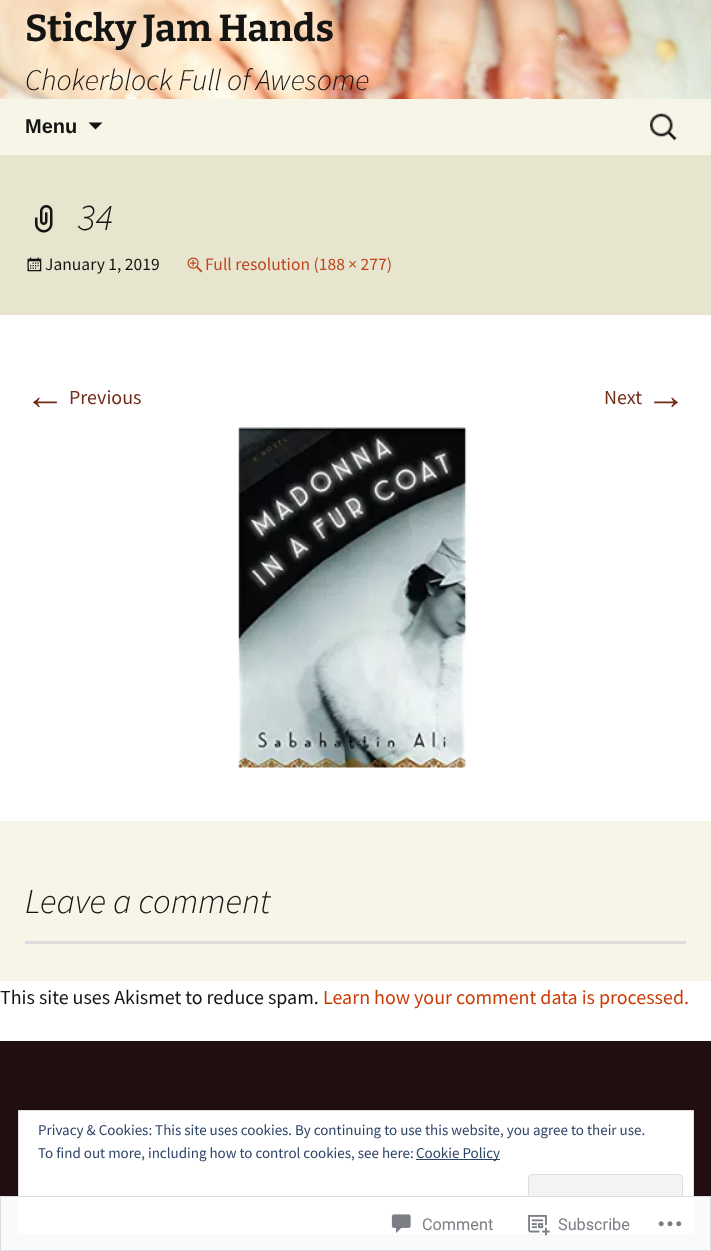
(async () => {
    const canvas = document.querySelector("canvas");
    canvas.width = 711;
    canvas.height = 1251;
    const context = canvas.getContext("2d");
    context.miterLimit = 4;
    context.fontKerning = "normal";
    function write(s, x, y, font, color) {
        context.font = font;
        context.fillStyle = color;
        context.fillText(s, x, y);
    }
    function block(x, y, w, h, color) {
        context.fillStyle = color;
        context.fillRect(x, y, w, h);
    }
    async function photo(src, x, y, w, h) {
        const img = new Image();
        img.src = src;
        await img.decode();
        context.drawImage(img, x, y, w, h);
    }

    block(0, 0, 711, 1251, "rgb(255, 255, 255)");
    await photo("media/1.png", 0, 0, 711, 99);
    write("Sticky Jam Hands", 25, 41, "bold 37.5px Bitter", "rgb(20, 20, 18)");
    write("Chokerblock Full of Awesome", 25, 90, "italic 300 30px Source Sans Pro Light", "rgb(20, 20, 18)");
    block(0, 99, 711, 56, "rgb(247, 245, 231)");
    write("Menu", 25, 133, "bold 20px Liberation Sans", "rgb(20, 20, 18)");
    context.fillStyle = "rgb(20, 20, 20)";
    context.beginPath();
    context.moveTo(88.5, 122.5);
    context.lineTo(102.5, 122.5);
    context.lineTo(95.5, 129.5);
    context.closePath();
    context.fill();
    await photo("media/2.png", 650, 113, 27, 28);
    block(0, 155, 711, 160, "rgb(232, 229, 206)");
    await photo("media/3.png", 35, 205, 18, 28);
    write("34", 78, 230, "italic 300 37.5px Source Sans Pro Light", "rgb(20, 20, 18)");
    await photo("media/4.png", 27, 257, 15, 15);
    write("January 1, 2019", 45, 270, "17.5px Source Sans Pro", "rgb(20, 20, 18)");
    await photo("media/5.png", 187, 257, 16, 16);
    write("Full resolution (188 × 277)", 205, 270, "17.5px Source Sans Pro", "rgb(191, 69, 32)");
    write("←", 25, 409, "40px Liberation Sans", "rgb(114, 45, 25)");
    write("Previous", 69, 404, "20px Source Sans Pro", "rgb(114, 45, 25)");
    write("Next", 604, 404, "20px Source Sans Pro", "rgb(114, 45, 25)");
    write("→", 646, 409, "40px Liberation Sans", "rgb(114, 45, 25)");
    await photo("media/6.png", 238, 427, 229, 341);
    block(0, 821, 711, 160, "rgb(247, 245, 231)");
    write("Leave a comment", 25, 913, "italic 300 35px Source Sans Pro Light", "rgb(20, 20, 18)");
    block(25, 941, 661, 3, "rgb(220, 220, 222)");
    write("This site uses Akismet to reduce spam.", 0, 1004, "20px Source Sans Pro", "rgb(20, 20, 18)");
    write("Learn how your comment data is processed.", 323, 1004, "20px Source Sans Pro", "rgb(202, 60, 8)");
    block(0, 1041, 711, 210, "rgb(33, 14, 16)");
    context.fillStyle = "rgb(255, 255, 255)";
    context.beginPath();
    context.rect(18.5, 1110.5, 675, 123);
    context.fill();
    context.strokeStyle = "rgb(222, 222, 222)";
    context.stroke();
    write("Privacy & Cookies: This site uses cookies. By continuing to use this website, you agree to their use.", 38, 1135, "15px Source Sans Pro", "rgb(46, 68, 103)");
    write("To find out more, including how to control cookies, see here:", 38, 1158, "15px Source Sans Pro", "rgb(46, 68, 103)");
    block(416, 1159, 84, 1, "rgb(46, 68, 103)");
    write("Cookie Policy", 416, 1158, "15px Source Sans Pro", "rgb(46, 68, 103)");
    context.fillStyle = "rgb(243, 243, 243)";
    context.beginPath();
    context.roundRect(528.5, 1174.5, 154, 48, 3.5);
    context.fill();
    context.stroke();
    block(0, 1196, 711, 55, "rgba(255, 255, 255, 0.98)");
    context.strokeStyle = "rgba(220, 220, 222, 0.98)";
    context.strokeRect(0.5, 1196.5, 710, 54);
    await photo("media/7.png", 391, 1214, 20, 19);
    write("Comment", 422, 1230, "16.25px Roboto", "rgb(123, 127, 133)");
    await photo("media/8.png", 528, 1215, 22, 21);
    write("Subscribe", 558, 1230, "16.25px Roboto", "rgb(123, 127, 133)");
    await photo("media/9.png", 658, 1221, 24, 6);
})();
